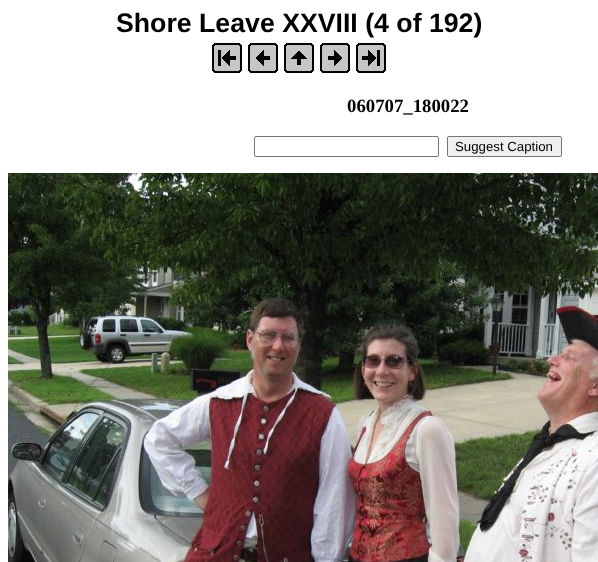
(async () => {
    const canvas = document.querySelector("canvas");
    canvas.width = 598;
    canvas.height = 562;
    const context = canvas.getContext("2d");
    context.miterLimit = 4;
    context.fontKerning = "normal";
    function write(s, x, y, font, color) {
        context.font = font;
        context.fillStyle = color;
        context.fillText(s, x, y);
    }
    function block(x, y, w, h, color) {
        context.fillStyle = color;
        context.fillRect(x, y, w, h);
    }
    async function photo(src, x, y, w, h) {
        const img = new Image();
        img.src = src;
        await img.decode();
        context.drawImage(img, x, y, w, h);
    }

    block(0, 0, 598, 562, "rgb(255, 255, 255)");
    write("Shore Leave XXVIII (4 of 192)", 116, 32, "bold 26.7px Liberation Sans", "rgb(0, 0, 0)");
    await photo("media/1.png", 212, 43, 30, 30);
    await photo("media/2.png", 248, 43, 30, 30);
    await photo("media/3.png", 284, 43, 30, 30);
    await photo("media/4.png", 320, 43, 30, 30);
    await photo("media/5.png", 356, 43, 30, 30);
    write("060707_180022", 347, 112, "bold 18.75px Liberation Serif", "rgb(0, 0, 0)");
    context.beginPath();
    context.roundRect(254.5, 136.5, 184, 20, 1.5);
    context.strokeStyle = "rgb(118, 118, 118)";
    context.stroke();
    context.fillStyle = "rgb(239, 239, 239)";
    context.beginPath();
    context.roundRect(447.5, 136.5, 114, 20, 1.5);
    context.fill();
    context.stroke();
    write("Suggest Caption", 455, 151, "13.25px Liberation Sans", "rgb(0, 0, 0)");
    await photo("media/6.png", 8, 173, 590, 389);
})();
